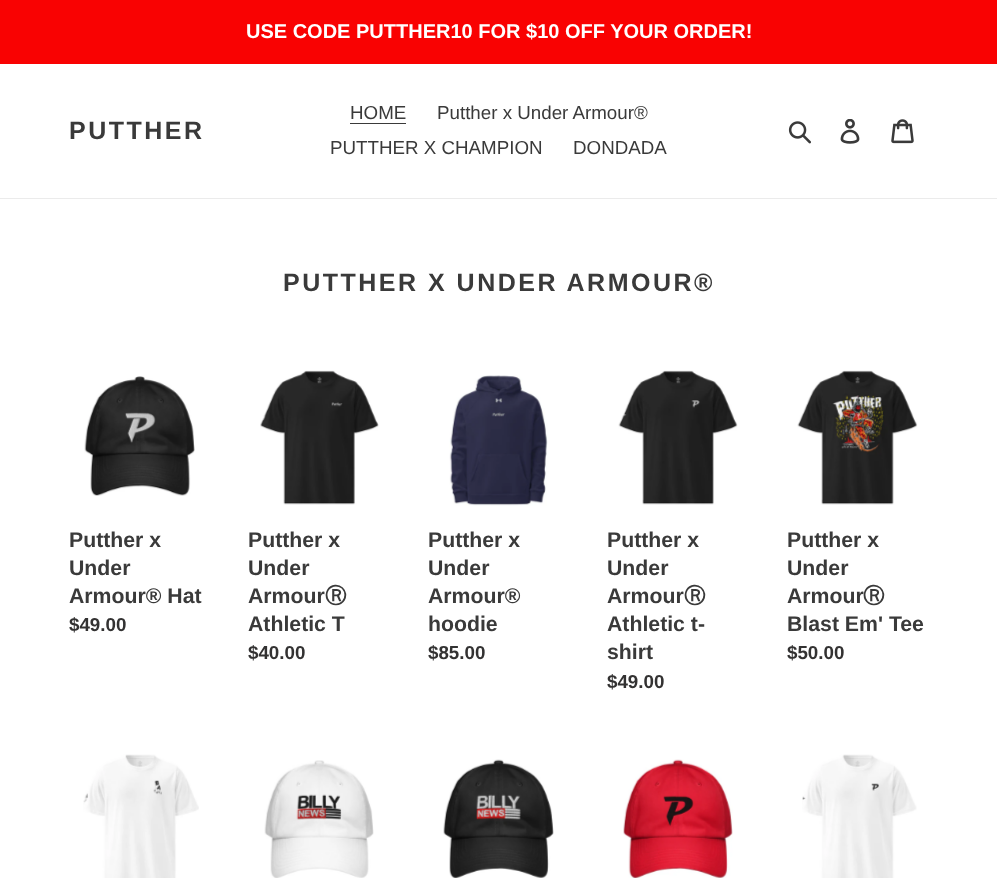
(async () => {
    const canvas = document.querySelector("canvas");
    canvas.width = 997;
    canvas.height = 878;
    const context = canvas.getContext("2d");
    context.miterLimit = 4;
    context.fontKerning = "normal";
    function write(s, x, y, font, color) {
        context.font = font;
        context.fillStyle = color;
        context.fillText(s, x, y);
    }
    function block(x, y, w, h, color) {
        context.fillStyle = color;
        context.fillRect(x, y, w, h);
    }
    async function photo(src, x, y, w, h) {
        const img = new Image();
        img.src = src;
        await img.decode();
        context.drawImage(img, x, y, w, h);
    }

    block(0, 0, 997, 878, "rgb(255, 255, 255)");
    block(0, 0, 997, 64, "rgb(249, 2, 2)");
    write("USE CODE PUTTHER10 FOR $10 OFF YOUR ORDER!", 246, 38, "bold 20px Liberation Sans", "rgb(255, 255, 255)");
    block(0, 198, 997, 1, "rgb(235, 235, 235)");
    context.letterSpacing = "2.5px";
    write("PUTTHER", 69, 139, "bold 25px Liberation Sans", "rgb(58, 58, 58)");
    context.letterSpacing = "0px";
    write("HOME", 350, 119, "18.75px Liberation Sans", "rgb(58, 58, 58)");
    block(350, 123, 56, 1, "rgb(58, 58, 58)");
    write("Putther x Under Armour®", 437, 119, "18.75px Liberation Sans", "rgb(58, 58, 58)");
    write("PUTTHER X CHAMPION", 330, 154, "18.75px Liberation Sans", "rgb(58, 58, 58)");
    write("DONDADA", 573, 154, "18.75px Liberation Sans", "rgb(58, 58, 58)");
    await photo("media/1.png", 788, 121, 23, 23);
    await photo("media/2.png", 840, 119, 20, 25);
    await photo("media/3.png", 891, 119, 23, 25);
    context.letterSpacing = "2.5px";
    write("PUTTHER X UNDER ARMOUR®", 283, 291, "bold 25px Liberation Sans", "rgb(58, 58, 58)");
    await photo("media/4.png", 84, 376, 111, 120);
    context.letterSpacing = "0px";
    write("Putther x", 69, 547, "bold 21.25px Liberation Sans", "rgb(58, 58, 58)");
    write("Under", 69, 575, "bold 21.25px Liberation Sans", "rgb(58, 58, 58)");
    write("Armour® Hat", 69, 603, "bold 21.25px Liberation Sans", "rgb(58, 58, 58)");
    write("$49.00", 69, 631, "bold 18.75px Liberation Sans", "rgb(51, 50, 50)");
    await photo("media/5.png", 260, 370, 119, 135);
    write("Putther x", 248, 547, "bold 21.25px Liberation Sans", "rgb(58, 58, 58)");
    write("Under", 248, 575, "bold 21.25px Liberation Sans", "rgb(58, 58, 58)");
    write("Armour", 248, 603, "bold 21.25px Liberation Sans", "rgb(58, 58, 58)");
    write("Ⓡ", 325, 603, "bold 21.25px WenQuanYi Zen Hei", "rgb(58, 58, 58)");
    write("Athletic T", 248, 631, "bold 21.25px Liberation Sans", "rgb(58, 58, 58)");
    write("$40.00", 248, 659, "bold 18.75px Liberation Sans", "rgb(51, 50, 50)");
    await photo("media/6.png", 449, 375, 99, 131);
    write("Putther x", 428, 547, "bold 21.25px Liberation Sans", "rgb(58, 58, 58)");
    write("Under", 428, 575, "bold 21.25px Liberation Sans", "rgb(58, 58, 58)");
    write("Armour®", 428, 603, "bold 21.25px Liberation Sans", "rgb(58, 58, 58)");
    write("hoodie", 428, 631, "bold 21.25px Liberation Sans", "rgb(58, 58, 58)");
    write("$85.00", 428, 659, "bold 18.75px Liberation Sans", "rgb(51, 50, 50)");
    await photo("media/7.png", 618, 370, 120, 135);
    write("Putther x", 607, 547, "bold 21.25px Liberation Sans", "rgb(58, 58, 58)");
    write("Under", 607, 575, "bold 21.25px Liberation Sans", "rgb(58, 58, 58)");
    write("Armour", 607, 603, "bold 21.25px Liberation Sans", "rgb(58, 58, 58)");
    write("Ⓡ", 684, 603, "bold 21.25px WenQuanYi Zen Hei", "rgb(58, 58, 58)");
    write("Athletic t-", 607, 631, "bold 21.25px Liberation Sans", "rgb(58, 58, 58)");
    write("shirt", 607, 659, "bold 21.25px Liberation Sans", "rgb(58, 58, 58)");
    write("$49.00", 607, 688, "bold 18.75px Liberation Sans", "rgb(51, 50, 50)");
    await photo("media/8.png", 797, 370, 121, 135);
    write("Putther x", 787, 547, "bold 21.25px Liberation Sans", "rgb(58, 58, 58)");
    write("Under", 787, 575, "bold 21.25px Liberation Sans", "rgb(58, 58, 58)");
    write("Armour", 787, 603, "bold 21.25px Liberation Sans", "rgb(58, 58, 58)");
    write("Ⓡ", 863, 603, "bold 21.25px WenQuanYi Zen Hei", "rgb(58, 58, 58)");
    write("Blast Em' Tee", 787, 631, "bold 21.25px Liberation Sans", "rgb(58, 58, 58)");
    write("$50.00", 787, 659, "bold 18.75px Liberation Sans", "rgb(51, 50, 50)");
    await photo("media/9.png", 83, 754, 116, 124);
    await photo("media/10.png", 264, 760, 110, 118);
    await photo("media/11.png", 443, 759, 111, 119);
    await photo("media/12.png", 623, 759, 110, 119);
    await photo("media/13.png", 802, 754, 115, 124);
})();
